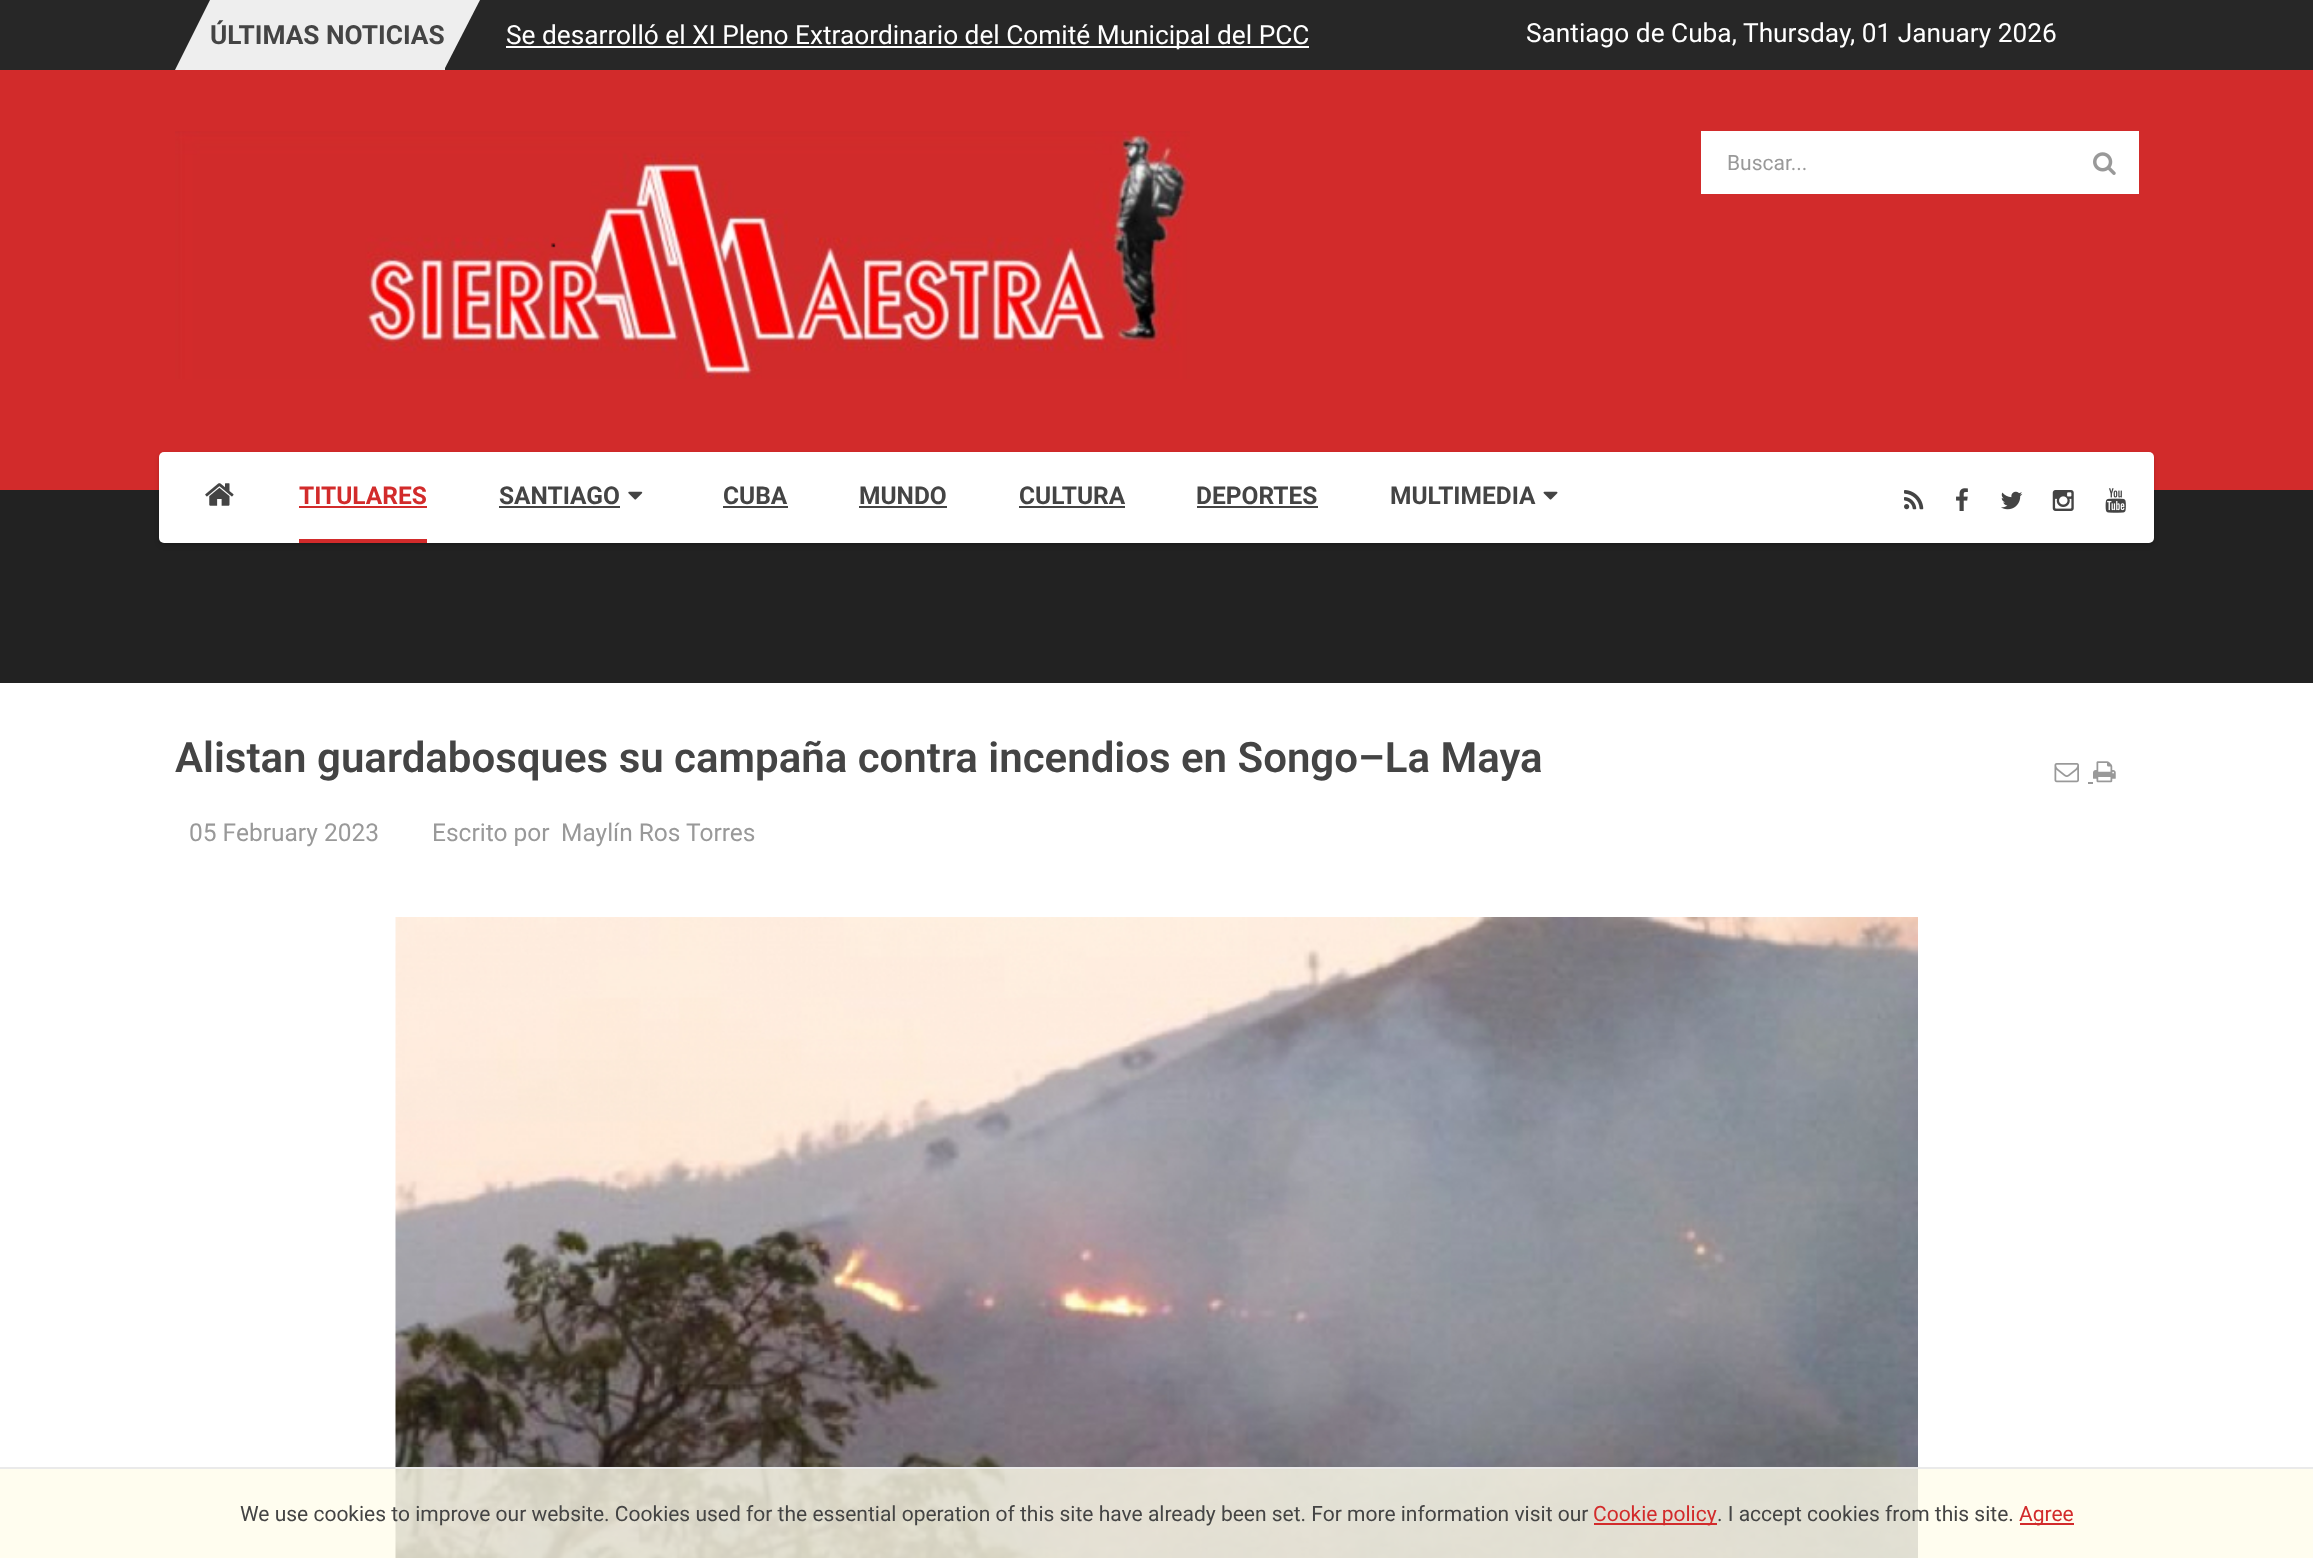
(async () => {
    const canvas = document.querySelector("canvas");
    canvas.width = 2313;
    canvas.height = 1558;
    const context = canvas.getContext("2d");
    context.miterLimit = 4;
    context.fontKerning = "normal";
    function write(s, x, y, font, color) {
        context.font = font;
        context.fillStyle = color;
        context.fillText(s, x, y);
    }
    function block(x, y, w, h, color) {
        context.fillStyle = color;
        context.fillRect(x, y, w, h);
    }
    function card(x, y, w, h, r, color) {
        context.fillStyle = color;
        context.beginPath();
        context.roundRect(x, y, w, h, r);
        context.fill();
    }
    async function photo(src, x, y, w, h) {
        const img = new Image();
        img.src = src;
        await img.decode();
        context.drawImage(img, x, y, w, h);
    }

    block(0, 0, 2313, 1558, "rgb(255, 255, 255)");
    block(0, 0, 2313, 70, "rgb(39, 39, 39)");
    block(210, 0, 235, 70, "rgb(238, 238, 238)");
    context.beginPath();
    context.moveTo(210, 0);
    context.lineTo(210, 70);
    context.lineTo(175, 70);
    context.closePath();
    context.fill();
    write("ÚLTIMAS NOTICIAS", 210, 44, "bold 26.25px Roboto", "rgb(68, 68, 68)");
    context.fillStyle = "rgb(238, 238, 238)";
    context.beginPath();
    context.moveTo(444, 70);
    context.lineTo(444, 0);
    context.lineTo(480, 0);
    context.closePath();
    context.fill();
    block(506, 46, 803, 2, "rgb(255, 255, 255)");
    write("Se desarrolló el XI Pleno Extraordinario del Comité Municipal del PCC", 506, 44, "26.25px Roboto", "rgb(255, 255, 255)");
    write("Santiago de Cuba,", 1526, 42, "26.25px Roboto", "rgb(255, 255, 255)");
    write("Thursday, 01 January 2026", 1743, 42, "26.25px Roboto", "rgb(255, 255, 255)");
    block(0, 70, 2313, 420, "rgb(210, 43, 43)");
    await photo("media/1.png", 175, 131, 1015, 248);
    block(1701, 131, 438, 63, "rgb(255, 255, 255)");
    write("Buscar...", 1727, 170, "21px Roboto", "rgb(153, 153, 153)");
    await photo("media/2.png", 2093, 152, 23, 23);
    block(0, 490, 2313, 193, "rgb(34, 34, 34)");
    context.fillStyle = "rgba(0, 0, 0, 0.1)";
    context.filter = "blur(2.5px)";
    context.beginPath();
    context.roundRect(159, 455, 1995, 91, 5);
    context.fill();
    context.filter = "none";
    context.filter = "blur(1px)";
    context.beginPath();
    context.roundRect(159, 453, 1995, 91, 5);
    context.fill();
    context.filter = "none";
    card(159, 452, 1995, 91, 5, "rgb(255, 255, 255)");
    await photo("media/3.png", 205, 483, 29, 23);
    block(299, 539, 128, 4, "rgb(210, 43, 43)");
    write("TITULARES", 299, 504, "bold 24.5px Roboto", "rgb(210, 43, 43)");
    block(299, 506, 128, 2, "rgb(210, 43, 43)");
    write("SANTIAGO", 499, 504, "bold 24.5px Roboto", "rgb(68, 68, 68)");
    block(499, 506, 121, 2, "rgb(68, 68, 68)");
    await photo("media/4.png", 628, 491, 15, 9);
    write("CUBA", 723, 504, "bold 24.5px Roboto", "rgb(68, 68, 68)");
    block(723, 506, 65, 2, "rgb(68, 68, 68)");
    write("MUNDO", 859, 504, "bold 24.5px Roboto", "rgb(68, 68, 68)");
    block(859, 506, 88, 2, "rgb(68, 68, 68)");
    write("CULTURA", 1019, 504, "bold 24.5px Roboto", "rgb(68, 68, 68)");
    block(1019, 506, 106, 2, "rgb(68, 68, 68)");
    write("DEPORTES", 1196, 504, "bold 24.5px Roboto", "rgb(68, 68, 68)");
    block(1197, 506, 121, 2, "rgb(68, 68, 68)");
    write("MULTIMEDIA", 1390, 504, "bold 24.5px Roboto", "rgb(68, 68, 68)");
    await photo("media/5.png", 1543, 491, 15, 9);
    await photo("media/6.png", 1904, 490, 20, 20);
    await photo("media/7.png", 1956, 488, 12, 23);
    await photo("media/8.png", 2001, 491, 22, 19);
    await photo("media/9.png", 2052, 490, 22, 21);
    await photo("media/10.png", 2105, 488, 21, 25);
    write("Alistan guardabosques su campaña contra incendios en Songo–La Maya", 175, 772, "600 42px Roboto", "rgb(68, 68, 68)");
    await photo("media/11.png", 2054, 763, 25, 20);
    block(2088, 782, 5, 2, "rgb(153, 153, 153)");
    await photo("media/12.png", 2093, 761, 23, 22);
    write("05 February 2023", 189, 841, "24.5px Roboto", "rgb(153, 153, 153)");
    write("Escrito por", 432, 841, "24.5px Roboto", "rgb(153, 153, 153)");
    write("Maylín Ros Torres", 561, 841, "24.5px Roboto", "rgb(153, 153, 153)");
    await photo("media/13.png", 395, 917, 1523, 641);
    block(0, 1469, 2313, 89, "rgba(255, 252, 235, 0.8)");
    block(0, 1467, 2313, 2, "rgb(234, 234, 234)");
    write("We use cookies to improve our website. Cookies used for the essential operation of this site have already been set. For more information visit our", 240, 1521, "21px Roboto", "rgb(68, 68, 68)");
    block(1594, 1523, 123, 2, "rgb(210, 43, 43)");
    context.wordSpacing = "-1px";
    write("Cookie policy", 1593, 1521, "21px Roboto", "rgb(210, 43, 43)");
    context.wordSpacing = "0px";
    write(". I accept cookies from this site.", 1717, 1521, "21px Roboto", "rgb(68, 68, 68)");
    block(2020, 1523, 54, 2, "rgb(210, 43, 43)");
    write("Agree", 2019, 1521, "21px Roboto", "rgb(210, 43, 43)");
})();
